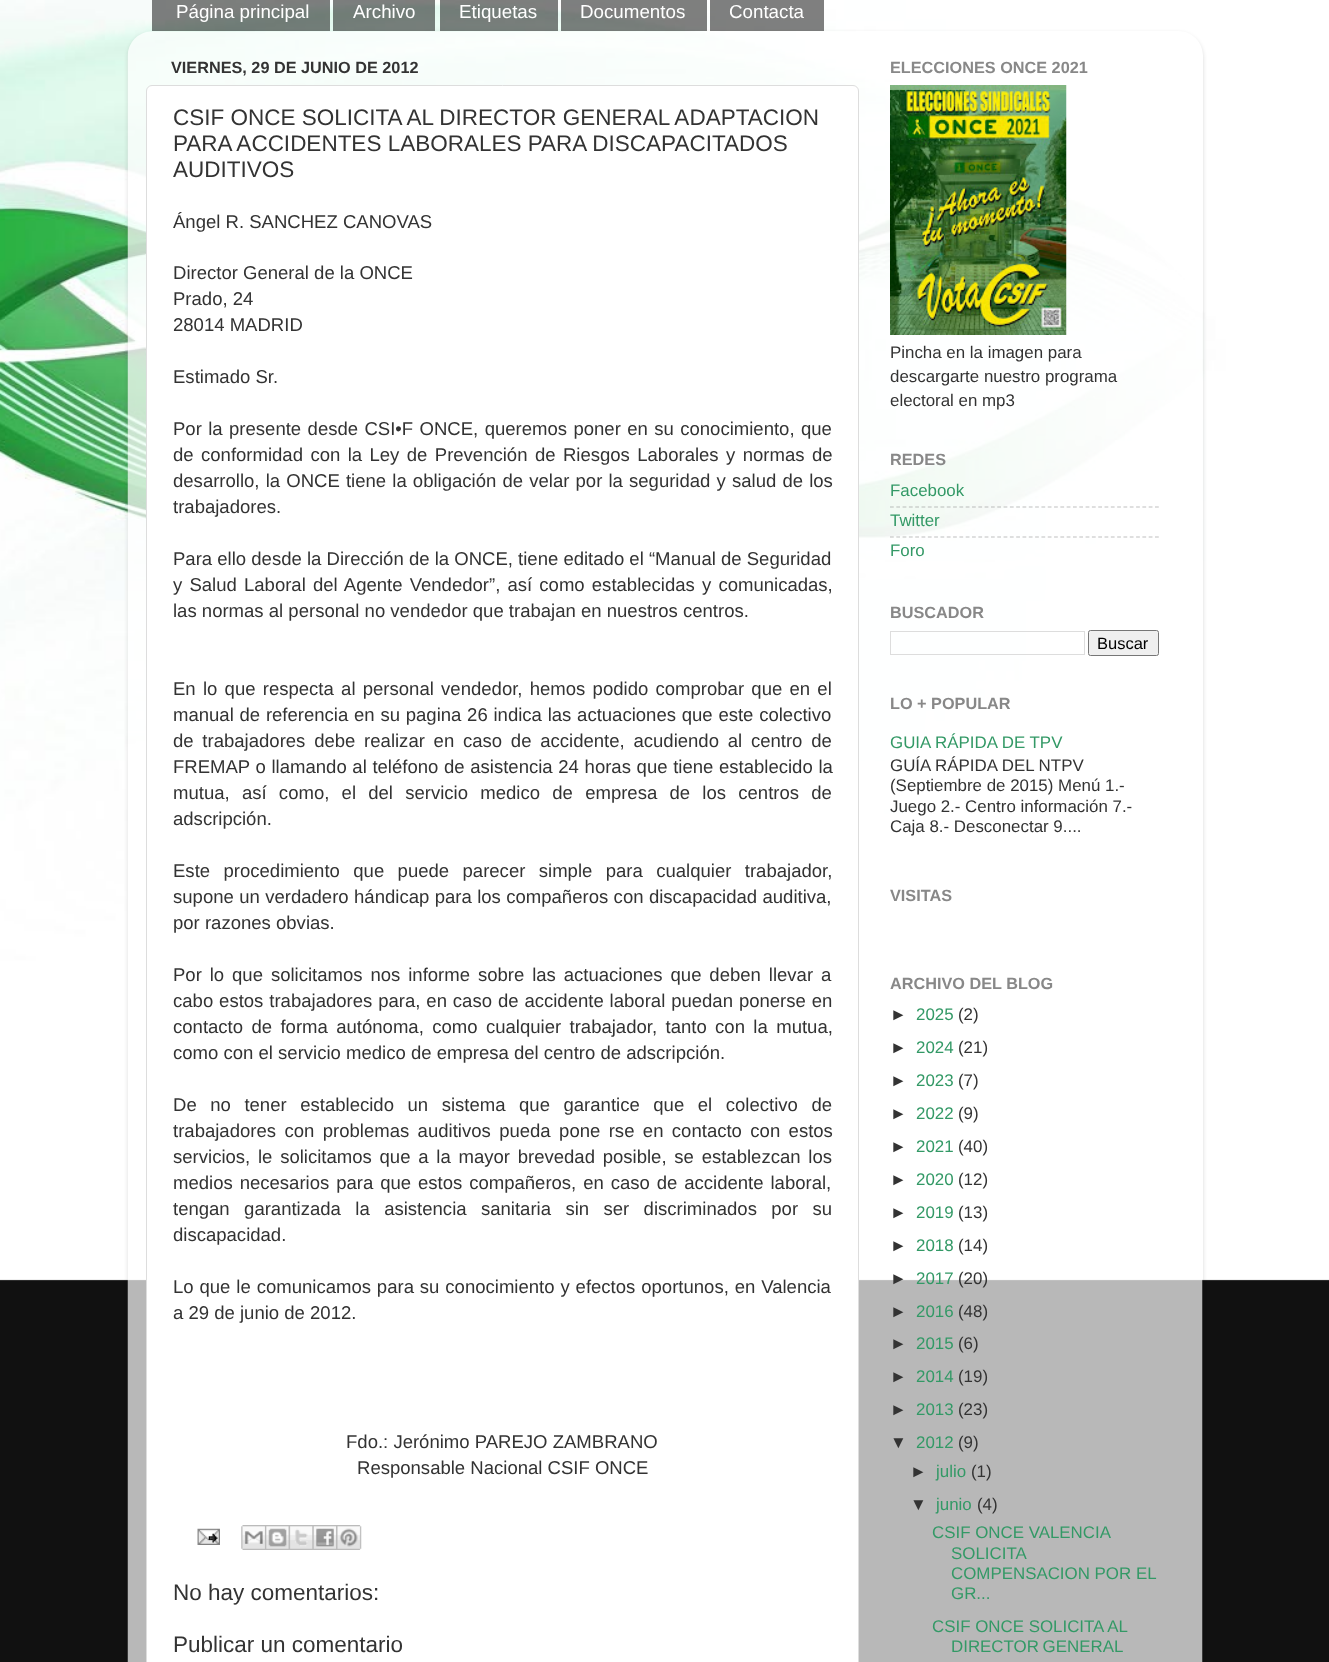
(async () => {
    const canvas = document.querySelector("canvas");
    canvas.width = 1329;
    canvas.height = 1662;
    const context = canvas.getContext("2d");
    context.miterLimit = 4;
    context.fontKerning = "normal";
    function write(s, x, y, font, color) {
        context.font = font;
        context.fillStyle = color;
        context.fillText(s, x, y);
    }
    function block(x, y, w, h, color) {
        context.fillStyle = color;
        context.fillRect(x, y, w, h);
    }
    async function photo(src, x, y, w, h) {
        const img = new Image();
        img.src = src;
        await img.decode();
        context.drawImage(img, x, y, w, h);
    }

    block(0, 0, 1329, 1662, "rgb(17, 17, 17)");
    await photo("media/1.png", 0, 0, 1329, 1281);
    block(152, 0, 178, 31, "rgba(0, 0, 0, 0.5)");
    write("Página principal", 176, 18, "18.75px Liberation Sans", "rgb(255, 255, 255)");
    block(333, 0, 102, 31, "rgba(0, 0, 0, 0.5)");
    write("Archivo", 353, 18, "18.75px Liberation Sans", "rgb(255, 255, 255)");
    block(440, 0, 118, 31, "rgba(0, 0, 0, 0.5)");
    write("Etiquetas", 459, 18, "18.75px Liberation Sans", "rgb(255, 255, 255)");
    block(561, 0, 146, 31, "rgba(0, 0, 0, 0.5)");
    write("Documentos", 580, 18, "18.75px Liberation Sans", "rgb(255, 255, 255)");
    block(710, 0, 114, 31, "rgba(0, 0, 0, 0.5)");
    write("Contacta", 729, 18, "18.75px Liberation Sans", "rgb(255, 255, 255)");
    context.save();
    context.beginPath();
    context.moveTo(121, 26);
    context.lineTo(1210, 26);
    context.lineTo(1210, 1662);
    context.lineTo(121, 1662);
    context.closePath();
    context.moveTo(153, 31);
    context.lineTo(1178, 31);
    context.bezierCurveTo(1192, 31, 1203, 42, 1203, 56);
    context.lineTo(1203, 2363);
    context.lineTo(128, 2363);
    context.lineTo(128, 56);
    context.bezierCurveTo(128, 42, 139, 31, 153, 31);
    context.closePath();
    context.clip("evenodd");
    context.fillStyle = "rgba(0, 0, 0, 0.15)";
    context.filter = "blur(2px)";
    context.beginPath();
    context.roundRect(128, 33, 1075, 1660, 25);
    context.fill();
    context.filter = "none";
    context.restore();
    await photo("media/2.png", 127, 31, 1076, 1631);
    write("VIERNES, 29 DE JUNIO DE 2012", 171, 73, "bold 16.25px Liberation Sans", "rgb(51, 51, 51)");
    context.fillStyle = "rgb(255, 255, 255)";
    context.beginPath();
    context.roundRect(146.5, 85.5, 712, 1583, 5.5);
    context.fill();
    context.strokeStyle = "rgb(221, 221, 221)";
    context.stroke();
    write("CSIF ONCE SOLICITA AL DIRECTOR GENERAL ADAPTACION", 173, 125, "22.5px Liberation Sans", "rgb(51, 51, 51)");
    write("PARA ACCIDENTES LABORALES PARA DISCAPACITADOS", 173, 151, "22.5px Liberation Sans", "rgb(51, 51, 51)");
    write("AUDITIVOS", 173, 177, "22.5px Liberation Sans", "rgb(51, 51, 51)");
    write("Ángel R. SANCHEZ CANOVAS", 173, 228, "18.55px Liberation Sans", "rgb(51, 51, 51)");
    write("Director General de la ONCE", 173, 279, "18.55px Liberation Sans", "rgb(51, 51, 51)");
    write("Prado, 24", 173, 305, "18.55px Liberation Sans", "rgb(51, 51, 51)");
    write("28014 MADRID", 173, 331, "18.55px Liberation Sans", "rgb(51, 51, 51)");
    write("Estimado Sr.", 173, 383, "18.55px Liberation Sans", "rgb(51, 51, 51)");
    context.wordSpacing = "1.25px";
    write("Por la presente desde CSI•F ONCE, queremos poner en su conocimiento, que", 173, 435, "18.55px Liberation Sans", "rgb(51, 51, 51)");
    context.wordSpacing = "2.25px";
    write("de conformidad con la Ley de Prevención de Riesgos Laborales y normas de", 173, 461, "18.55px Liberation Sans", "rgb(51, 51, 51)");
    context.wordSpacing = "1px";
    write("desarrollo, la ONCE tiene la obligación de velar por la seguridad y salud de los", 173, 487, "18.55px Liberation Sans", "rgb(51, 51, 51)");
    context.wordSpacing = "0px";
    write("trabajadores.", 173, 513, "18.55px Liberation Sans", "rgb(51, 51, 51)");
    write("Para ello desde la Dirección de la ONCE, tiene editado el “Manual de Seguridad", 173, 565, "18.55px Liberation Sans", "rgb(51, 51, 51)");
    context.wordSpacing = "2px";
    write("y Salud Laboral del Agente Vendedor”, así como establecidas y comunicadas,", 173, 591, "18.55px Liberation Sans", "rgb(51, 51, 51)");
    context.wordSpacing = "0px";
    write("las normas al personal no vendedor que trabajan en nuestros centros.", 173, 617, "18.55px Liberation Sans", "rgb(51, 51, 51)");
    context.wordSpacing = "2.1px";
    write("En lo que respecta al personal vendedor, hemos podido comprobar que en el", 173, 695, "18.55px Liberation Sans", "rgb(51, 51, 51)");
    context.wordSpacing = "0.6px";
    write("manual de referencia en su pagina 26 indica las actuaciones que este colectivo", 173, 721, "18.55px Liberation Sans", "rgb(51, 51, 51)");
    context.wordSpacing = "3.6px";
    write("de trabajadores debe realizar en caso de accidente, acudiendo al centro de", 173, 747, "18.55px Liberation Sans", "rgb(51, 51, 51)");
    context.wordSpacing = "0.5px";
    write("FREMAP o llamando al teléfono de asistencia 24 horas que tiene establecido la", 173, 773, "18.55px Liberation Sans", "rgb(51, 51, 51)");
    context.wordSpacing = "7.1px";
    write("mutua, así como, el del servicio medico de empresa de los centros de", 173, 799, "18.55px Liberation Sans", "rgb(51, 51, 51)");
    context.wordSpacing = "0px";
    write("adscripción.", 173, 825, "18.55px Liberation Sans", "rgb(51, 51, 51)");
    context.wordSpacing = "8.25px";
    write("Este procedimiento que puede parecer simple para cualquier trabajador,", 173, 877, "18.55px Liberation Sans", "rgb(51, 51, 51)");
    context.wordSpacing = "0.25px";
    write("supone un verdadero hándicap para los compañeros con discapacidad auditiva,", 173, 903, "18.55px Liberation Sans", "rgb(51, 51, 51)");
    context.wordSpacing = "0px";
    write("por razones obvias.", 173, 929, "18.55px Liberation Sans", "rgb(51, 51, 51)");
    context.wordSpacing = "2.75px";
    write("Por lo que solicitamos nos informe sobre las actuaciones que deben llevar a", 173, 981, "18.55px Liberation Sans", "rgb(51, 51, 51)");
    context.wordSpacing = "0.75px";
    write("cabo estos trabajadores para, en caso de accidente laboral puedan ponerse en", 173, 1007, "18.55px Liberation Sans", "rgb(51, 51, 51)");
    context.wordSpacing = "3.25px";
    write("contacto de forma autónoma, como cualquier trabajador, tanto con la mutua,", 173, 1033, "18.55px Liberation Sans", "rgb(51, 51, 51)");
    context.wordSpacing = "0px";
    write("como con el servicio medico de empresa del centro de adscripción.", 173, 1059, "18.55px Liberation Sans", "rgb(51, 51, 51)");
    context.wordSpacing = "8.4px";
    write("De no tener establecido un sistema que garantice que el colectivo de", 173, 1111, "18.55px Liberation Sans", "rgb(51, 51, 51)");
    context.wordSpacing = "3.25px";
    write("trabajadores con problemas auditivos pueda pone rse en contacto con estos", 173, 1137, "18.55px Liberation Sans", "rgb(51, 51, 51)");
    context.wordSpacing = "2.6px";
    write("servicios, le solicitamos que a la mayor brevedad posible, se establezcan los", 173, 1163, "18.55px Liberation Sans", "rgb(51, 51, 51)");
    context.wordSpacing = "1.75px";
    write("medios necesarios para que estos compañeros, en caso de accidente laboral,", 173, 1189, "18.55px Liberation Sans", "rgb(51, 51, 51)");
    context.wordSpacing = "9.25px";
    write("tengan garantizada la asistencia sanitaria sin ser discriminados por su", 173, 1215, "18.55px Liberation Sans", "rgb(51, 51, 51)");
    context.wordSpacing = "0px";
    write("discapacidad.", 173, 1241, "18.55px Liberation Sans", "rgb(51, 51, 51)");
    context.wordSpacing = "0.75px";
    write("Lo que le comunicamos para su conocimiento y efectos oportunos, en Valencia", 173, 1293, "18.55px Liberation Sans", "rgb(51, 51, 51)");
    context.wordSpacing = "0px";
    write("a 29 de junio de 2012.", 173, 1319, "18.55px Liberation Sans", "rgb(51, 51, 51)");
    write("Fdo.: Jerónimo PAREJO ZAMBRANO", 346, 1448, "18.55px Liberation Sans", "rgb(51, 51, 51)");
    write("Responsable Nacional CSIF ONCE", 357, 1474, "18.55px Liberation Sans", "rgb(51, 51, 51)");
    await photo("media/3.png", 197, 1528, 23, 17);
    await photo("media/4.png", 241, 1525, 24, 25);
    await photo("media/5.png", 265, 1525, 24, 25);
    await photo("media/6.png", 288, 1525, 25, 25);
    await photo("media/7.png", 312, 1525, 25, 25);
    await photo("media/8.png", 336, 1525, 26, 25);
    write("No hay comentarios:", 173, 1600, "22.5px Liberation Sans", "rgb(51, 51, 51)");
    write("Publicar un comentario", 173, 1652, "22.5px Liberation Sans", "rgb(51, 51, 51)");
    write("ELECCIONES ONCE 2021", 890, 73, "bold 16.25px Liberation Sans", "rgb(136, 136, 136)");
    await photo("media/9.png", 890, 85, 177, 250);
    write("Pincha en la imagen para", 890, 358, "16.9px Liberation Sans", "rgb(51, 51, 51)");
    write("descargarte nuestro programa", 890, 382, "16.9px Liberation Sans", "rgb(51, 51, 51)");
    write("electoral en mp3", 890, 406, "16.9px Liberation Sans", "rgb(51, 51, 51)");
    write("REDES", 890, 465, "bold 16.25px Liberation Sans", "rgb(136, 136, 136)");
    write("Facebook", 890, 496, "16.9px Liberation Sans", "rgb(51, 153, 102)");
    context.beginPath();
    context.moveTo(890, 507);
    context.lineTo(1159, 507);
    context.strokeStyle = "rgba(128, 128, 128, 0.5)";
    context.lineWidth = 1.2;
    context.setLineDash([3.75, 2.56]);
    context.stroke();
    write("Twitter", 890, 526, "16.9px Liberation Sans", "rgb(51, 153, 102)");
    context.beginPath();
    context.moveTo(890, 537);
    context.lineTo(1159, 537);
    context.stroke();
    write("Foro", 890, 556, "16.9px Liberation Sans", "rgb(51, 153, 102)");
    write("BUSCADOR", 890, 618, "bold 16.25px Liberation Sans", "rgb(136, 136, 136)");
    context.strokeStyle = "rgb(221, 221, 221)";
    context.lineWidth = 1;
    context.setLineDash([]);
    context.strokeRect(890.5, 631.5, 194, 23);
    context.fillStyle = "rgb(239, 239, 239)";
    context.beginPath();
    context.roundRect(1088.5, 630.5, 70, 25, 2);
    context.fill();
    context.strokeStyle = "rgb(118, 118, 118)";
    context.stroke();
    write("Buscar", 1097, 649, "16.5px Liberation Sans", "rgb(0, 0, 0)");
    write("LO + POPULAR", 890, 709, "bold 16.25px Liberation Sans", "rgb(136, 136, 136)");
    write("GUIA RÁPIDA DE TPV", 890, 748, "16.9px Liberation Sans", "rgb(51, 153, 102)");
    write("GUÍA RÁPIDA DEL NTPV", 890, 771, "16.9px Liberation Sans", "rgb(51, 51, 51)");
    write("(Septiembre de 2015) Menú 1.-", 890, 791, "16.9px Liberation Sans", "rgb(51, 51, 51)");
    write("Juego 2.- Centro información 7.-", 890, 812, "16.9px Liberation Sans", "rgb(51, 51, 51)");
    write("Caja 8.- Desconectar 9....", 890, 832, "16.9px Liberation Sans", "rgb(51, 51, 51)");
    write("VISITAS", 890, 901, "bold 16.25px Liberation Sans", "rgb(136, 136, 136)");
    write("ARCHIVO DEL BLOG", 890, 989, "bold 16.25px Liberation Sans", "rgb(136, 136, 136)");
    write("►", 890, 1020, "16.9px Liberation Sans", "rgb(51, 51, 51)");
    write("2025", 916, 1020, "16.9px Liberation Sans", "rgb(51, 153, 102)");
    write("(2)", 958, 1020, "16.9px Liberation Sans", "rgb(51, 51, 51)");
    write("►", 890, 1053, "16.9px Liberation Sans", "rgb(51, 51, 51)");
    write("2024", 916, 1053, "16.9px Liberation Sans", "rgb(51, 153, 102)");
    write("(21)", 958, 1053, "16.9px Liberation Sans", "rgb(51, 51, 51)");
    write("►", 890, 1086, "16.9px Liberation Sans", "rgb(51, 51, 51)");
    write("2023", 916, 1086, "16.9px Liberation Sans", "rgb(51, 153, 102)");
    write("(7)", 958, 1086, "16.9px Liberation Sans", "rgb(51, 51, 51)");
    write("►", 890, 1119, "16.9px Liberation Sans", "rgb(51, 51, 51)");
    write("2022", 916, 1119, "16.9px Liberation Sans", "rgb(51, 153, 102)");
    write("(9)", 958, 1119, "16.9px Liberation Sans", "rgb(51, 51, 51)");
    write("►", 890, 1152, "16.9px Liberation Sans", "rgb(51, 51, 51)");
    write("2021", 916, 1152, "16.9px Liberation Sans", "rgb(51, 153, 102)");
    write("(40)", 958, 1152, "16.9px Liberation Sans", "rgb(51, 51, 51)");
    write("►", 890, 1185, "16.9px Liberation Sans", "rgb(51, 51, 51)");
    write("2020", 916, 1185, "16.9px Liberation Sans", "rgb(51, 153, 102)");
    write("(12)", 958, 1185, "16.9px Liberation Sans", "rgb(51, 51, 51)");
    write("►", 890, 1218, "16.9px Liberation Sans", "rgb(51, 51, 51)");
    write("2019", 916, 1218, "16.9px Liberation Sans", "rgb(51, 153, 102)");
    write("(13)", 958, 1218, "16.9px Liberation Sans", "rgb(51, 51, 51)");
    write("►", 890, 1251, "16.9px Liberation Sans", "rgb(51, 51, 51)");
    write("2018", 916, 1251, "16.9px Liberation Sans", "rgb(51, 153, 102)");
    write("(14)", 958, 1251, "16.9px Liberation Sans", "rgb(51, 51, 51)");
    write("►", 890, 1284, "16.9px Liberation Sans", "rgb(51, 51, 51)");
    write("2017", 916, 1284, "16.9px Liberation Sans", "rgb(51, 153, 102)");
    write("(20)", 958, 1284, "16.9px Liberation Sans", "rgb(51, 51, 51)");
    write("►", 890, 1317, "16.9px Liberation Sans", "rgb(51, 51, 51)");
    write("2016", 916, 1317, "16.9px Liberation Sans", "rgb(51, 153, 102)");
    write("(48)", 958, 1317, "16.9px Liberation Sans", "rgb(51, 51, 51)");
    write("►", 890, 1349, "16.9px Liberation Sans", "rgb(51, 51, 51)");
    write("2015", 916, 1349, "16.9px Liberation Sans", "rgb(51, 153, 102)");
    write("(6)", 958, 1349, "16.9px Liberation Sans", "rgb(51, 51, 51)");
    write("►", 890, 1382, "16.9px Liberation Sans", "rgb(51, 51, 51)");
    write("2014", 916, 1382, "16.9px Liberation Sans", "rgb(51, 153, 102)");
    write("(19)", 958, 1382, "16.9px Liberation Sans", "rgb(51, 51, 51)");
    write("►", 890, 1415, "16.9px Liberation Sans", "rgb(51, 51, 51)");
    write("2013", 916, 1415, "16.9px Liberation Sans", "rgb(51, 153, 102)");
    write("(23)", 958, 1415, "16.9px Liberation Sans", "rgb(51, 51, 51)");
    write("▼", 890, 1448, "16.9px Liberation Sans", "rgb(51, 51, 51)");
    write("2012", 916, 1448, "16.9px Liberation Sans", "rgb(51, 153, 102)");
    write("(9)", 958, 1448, "16.9px Liberation Sans", "rgb(51, 51, 51)");
    write("►", 910, 1477, "16.9px Liberation Sans", "rgb(51, 51, 51)");
    write("julio", 936, 1477, "16.9px Liberation Sans", "rgb(51, 153, 102)");
    write("(1)", 971, 1477, "16.9px Liberation Sans", "rgb(51, 51, 51)");
    write("▼", 910, 1510, "16.9px Liberation Sans", "rgb(51, 51, 51)");
    write("junio", 936, 1510, "16.9px Liberation Sans", "rgb(51, 153, 102)");
    write("(4)", 977, 1510, "16.9px Liberation Sans", "rgb(51, 51, 51)");
    write("CSIF ONCE VALENCIA", 932, 1538, "16.9px Liberation Sans", "rgb(51, 153, 102)");
    write("SOLICITA", 951, 1559, "16.9px Liberation Sans", "rgb(51, 153, 102)");
    write("COMPENSACION POR EL", 951, 1579, "16.9px Liberation Sans", "rgb(51, 153, 102)");
    write("GR...", 951, 1599, "16.9px Liberation Sans", "rgb(51, 153, 102)");
    write("CSIF ONCE SOLICITA AL", 932, 1632, "16.9px Liberation Sans", "rgb(51, 153, 102)");
    context.wordSpacing = "-1px";
    write("DIRECTOR GENERAL", 951, 1652, "16.9px Liberation Sans", "rgb(51, 153, 102)");
})();
